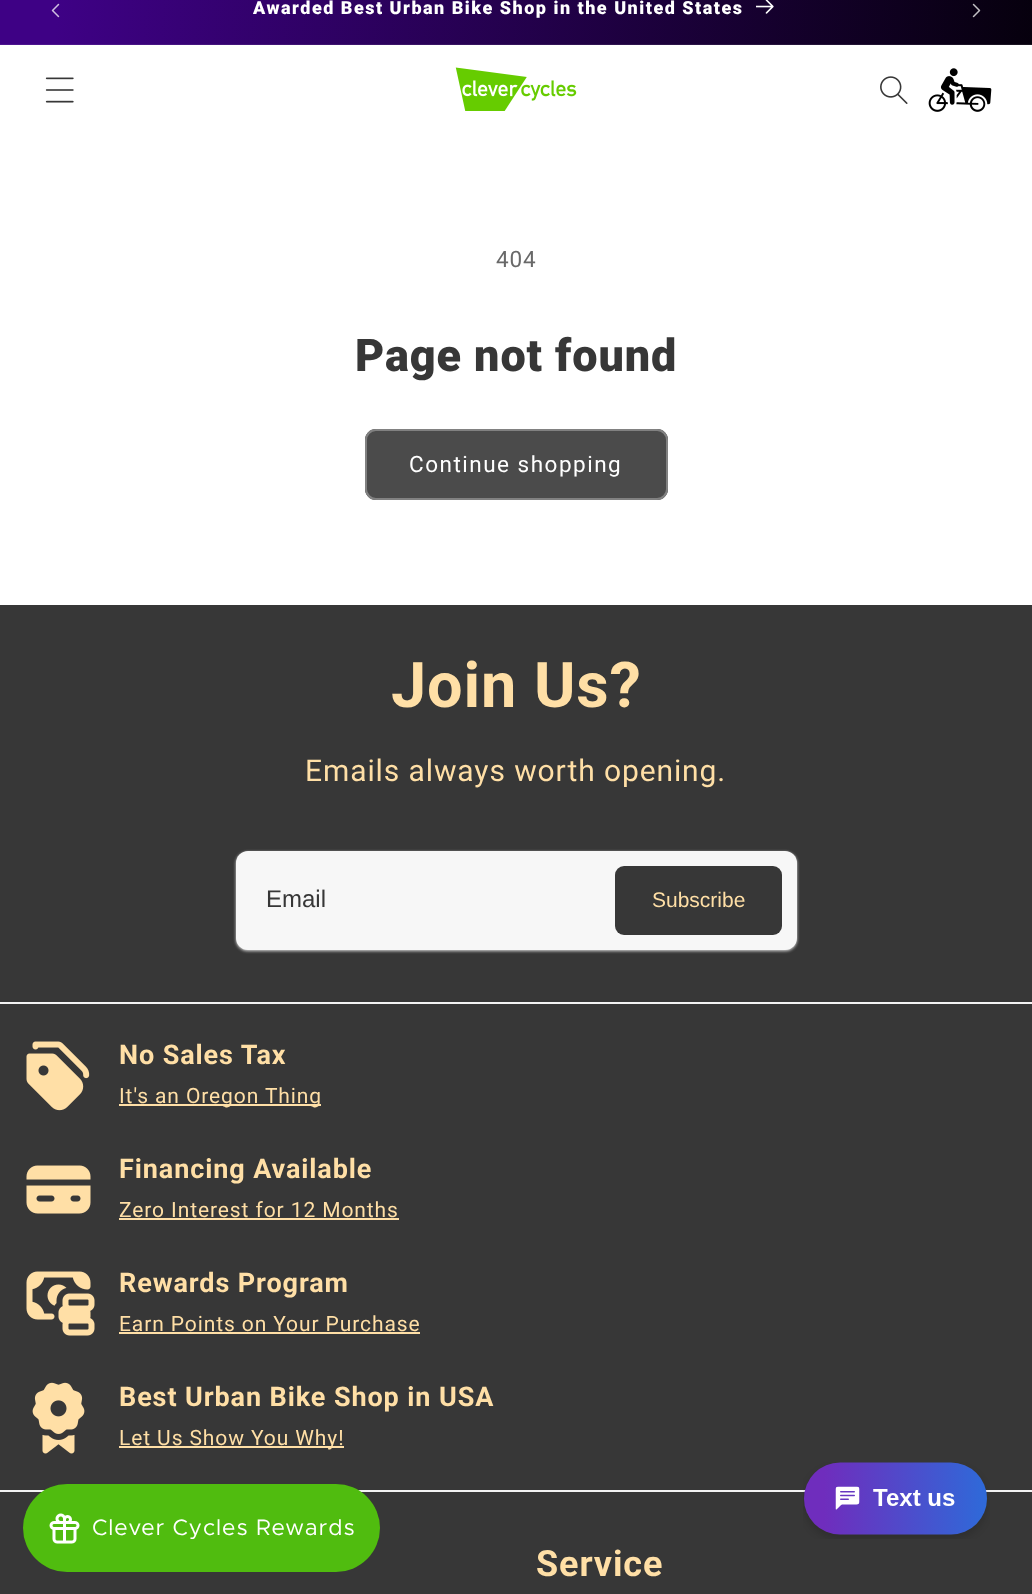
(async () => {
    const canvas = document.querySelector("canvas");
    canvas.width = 1032;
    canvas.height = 1594;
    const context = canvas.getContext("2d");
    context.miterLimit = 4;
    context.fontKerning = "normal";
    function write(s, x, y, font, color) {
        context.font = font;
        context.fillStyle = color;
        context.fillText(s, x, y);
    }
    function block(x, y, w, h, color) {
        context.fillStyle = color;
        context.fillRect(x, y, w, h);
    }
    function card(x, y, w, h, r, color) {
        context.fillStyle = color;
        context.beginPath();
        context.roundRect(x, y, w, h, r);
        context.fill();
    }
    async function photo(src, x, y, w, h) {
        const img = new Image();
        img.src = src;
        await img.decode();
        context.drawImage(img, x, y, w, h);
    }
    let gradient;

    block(0, 0, 1032, 1594, "rgb(255, 255, 255)");
    gradient = context.createLinearGradient(-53, 757, 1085, 837);
    gradient.addColorStop(0.05, "rgb(62, 1, 133)");
    gradient.addColorStop(1, "rgb(0, 0, 0)");
    gradient.addColorStop(1, "rgb(63, 1, 136)");
    context.fillStyle = gradient;
    context.fillRect(0, 0, 1032, 44);
    gradient = context.createLinearGradient(-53, 757, 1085, 837);
    gradient.addColorStop(0.05, "rgb(77, 21, 143)");
    gradient.addColorStop(1, "rgb(20, 20, 20)");
    gradient.addColorStop(1, "rgb(78, 21, 146)");
    context.fillStyle = gradient;
    context.fillRect(0, 44, 1032, 1);
    await photo("media/1.png", 51, 3, 9, 15);
    context.letterSpacing = "1.5px";
    write("Awarded Best Urban Bike Shop in the United States", 253, 14, "900 18px Roboto", "rgb(255, 255, 255)");
    await photo("media/2.png", 756, 0, 18, 14);
    await photo("media/3.png", 972, 3, 9, 15);
    await photo("media/4.png", 45, 77, 29, 26);
    await photo("media/5.png", 455, 67, 122, 44);
    await photo("media/6.png", 880, 76, 28, 28);
    await photo("media/7.png", 928, 68, 64, 44);
    context.letterSpacing = "0.9px";
    write("404", 496, 267, "22.5px Roboto", "rgb(105, 105, 105)");
    write("Page not found", 355, 371, "900 45px Roboto", "rgb(55, 55, 55)");
    card(365, 429, 303, 71, 11, "rgb(75, 75, 75)");
    context.beginPath();
    context.roundRect(366, 430, 301, 69, 10);
    context.strokeStyle = "rgb(75, 75, 75)";
    context.lineWidth = 2;
    context.stroke();
    context.beginPath();
    context.roundRect(366, 430, 301, 69, 10);
    context.strokeStyle = "rgba(255, 255, 255, 0.3)";
    context.stroke();
    context.letterSpacing = "1.5px";
    write("Continue shopping", 409, 472, "22.5px Roboto", "rgb(255, 255, 255)");
    block(0, 605, 1032, 989, "rgb(55, 55, 55)");
    context.letterSpacing = "0.9px";
    write("Join Us?", 391, 707, "bold 63px Roboto", "rgb(255, 223, 166)");
    write("Emails always worth opening.", 305, 781, "30px Roboto", "rgb(255, 223, 166)");
    context.fillStyle = "rgba(245, 245, 245, 0.1)";
    context.filter = "blur(2px)";
    context.beginPath();
    context.roundRect(236, 852, 561, 99, 12);
    context.fill();
    context.filter = "none";
    context.fillStyle = "rgba(245, 245, 245, 0.8)";
    context.filter = "blur(1.5px)";
    context.beginPath();
    context.roundRect(236, 852, 561, 99, 12);
    context.fill();
    context.filter = "none";
    card(236, 851, 561, 99, 12, "rgb(247, 247, 247)");
    context.letterSpacing = "0px";
    write("Email", 266, 907, "24px Liberation Sans", "rgb(55, 55, 55)");
    card(615, 866, 167, 69, 9, "rgb(55, 55, 55)");
    write("Subscribe", 652, 907, "21px Liberation Sans", "rgb(255, 223, 166)");
    block(0, 1002, 1032, 2, "rgb(243, 243, 243)");
    await photo("media/8.png", 26, 1041, 64, 70);
    context.letterSpacing = "0.9px";
    write("No Sales Tax", 119, 1064, "bold 27px Roboto", "rgb(255, 223, 166)");
    block(119, 1104, 202, 2, "rgb(255, 223, 166)");
    write("It's an Oregon Thing", 119, 1103, "21px Roboto", "rgb(255, 223, 166)");
    await photo("media/9.png", 26, 1165, 65, 49);
    write("Financing Available", 119, 1178, "bold 27px Roboto", "rgb(255, 223, 166)");
    write("Zero Interest for 12 Months", 119, 1217, "21px Roboto", "rgb(255, 223, 166)");
    block(119, 1218, 280, 2, "rgb(255, 223, 166)");
    await photo("media/10.png", 26, 1271, 69, 65);
    write("Rewards Program", 119, 1292, "bold 27px Roboto", "rgb(255, 223, 166)");
    write("Earn Points on Your Purchase", 119, 1331, "21px Roboto", "rgb(255, 223, 166)");
    block(119, 1332, 301, 2, "rgb(255, 223, 166)");
    await photo("media/11.png", 32, 1382, 53, 72);
    write("Best Urban Bike Shop in USA", 119, 1406, "bold 27px Roboto", "rgb(255, 223, 166)");
    block(119, 1446, 225, 2, "rgb(255, 223, 166)");
    write("Let Us Show You Why!", 119, 1445, "21px Roboto", "rgb(255, 223, 166)");
    block(0, 1490, 1032, 2, "rgb(243, 243, 243)");
    write("Service", 536, 1576, "bold 36px Roboto", "rgb(255, 223, 166)");
    await photo("media/12.png", 803, 1462, 187, 77);
    card(23, 1484, 357, 88, 44, "rgb(80, 188, 15)");
    await photo("media/13.png", 49, 1513, 31, 31);
    write("Clever Cycles Rewards", 92, 1535, "22.5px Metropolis", "rgb(255, 255, 255)");
})();
